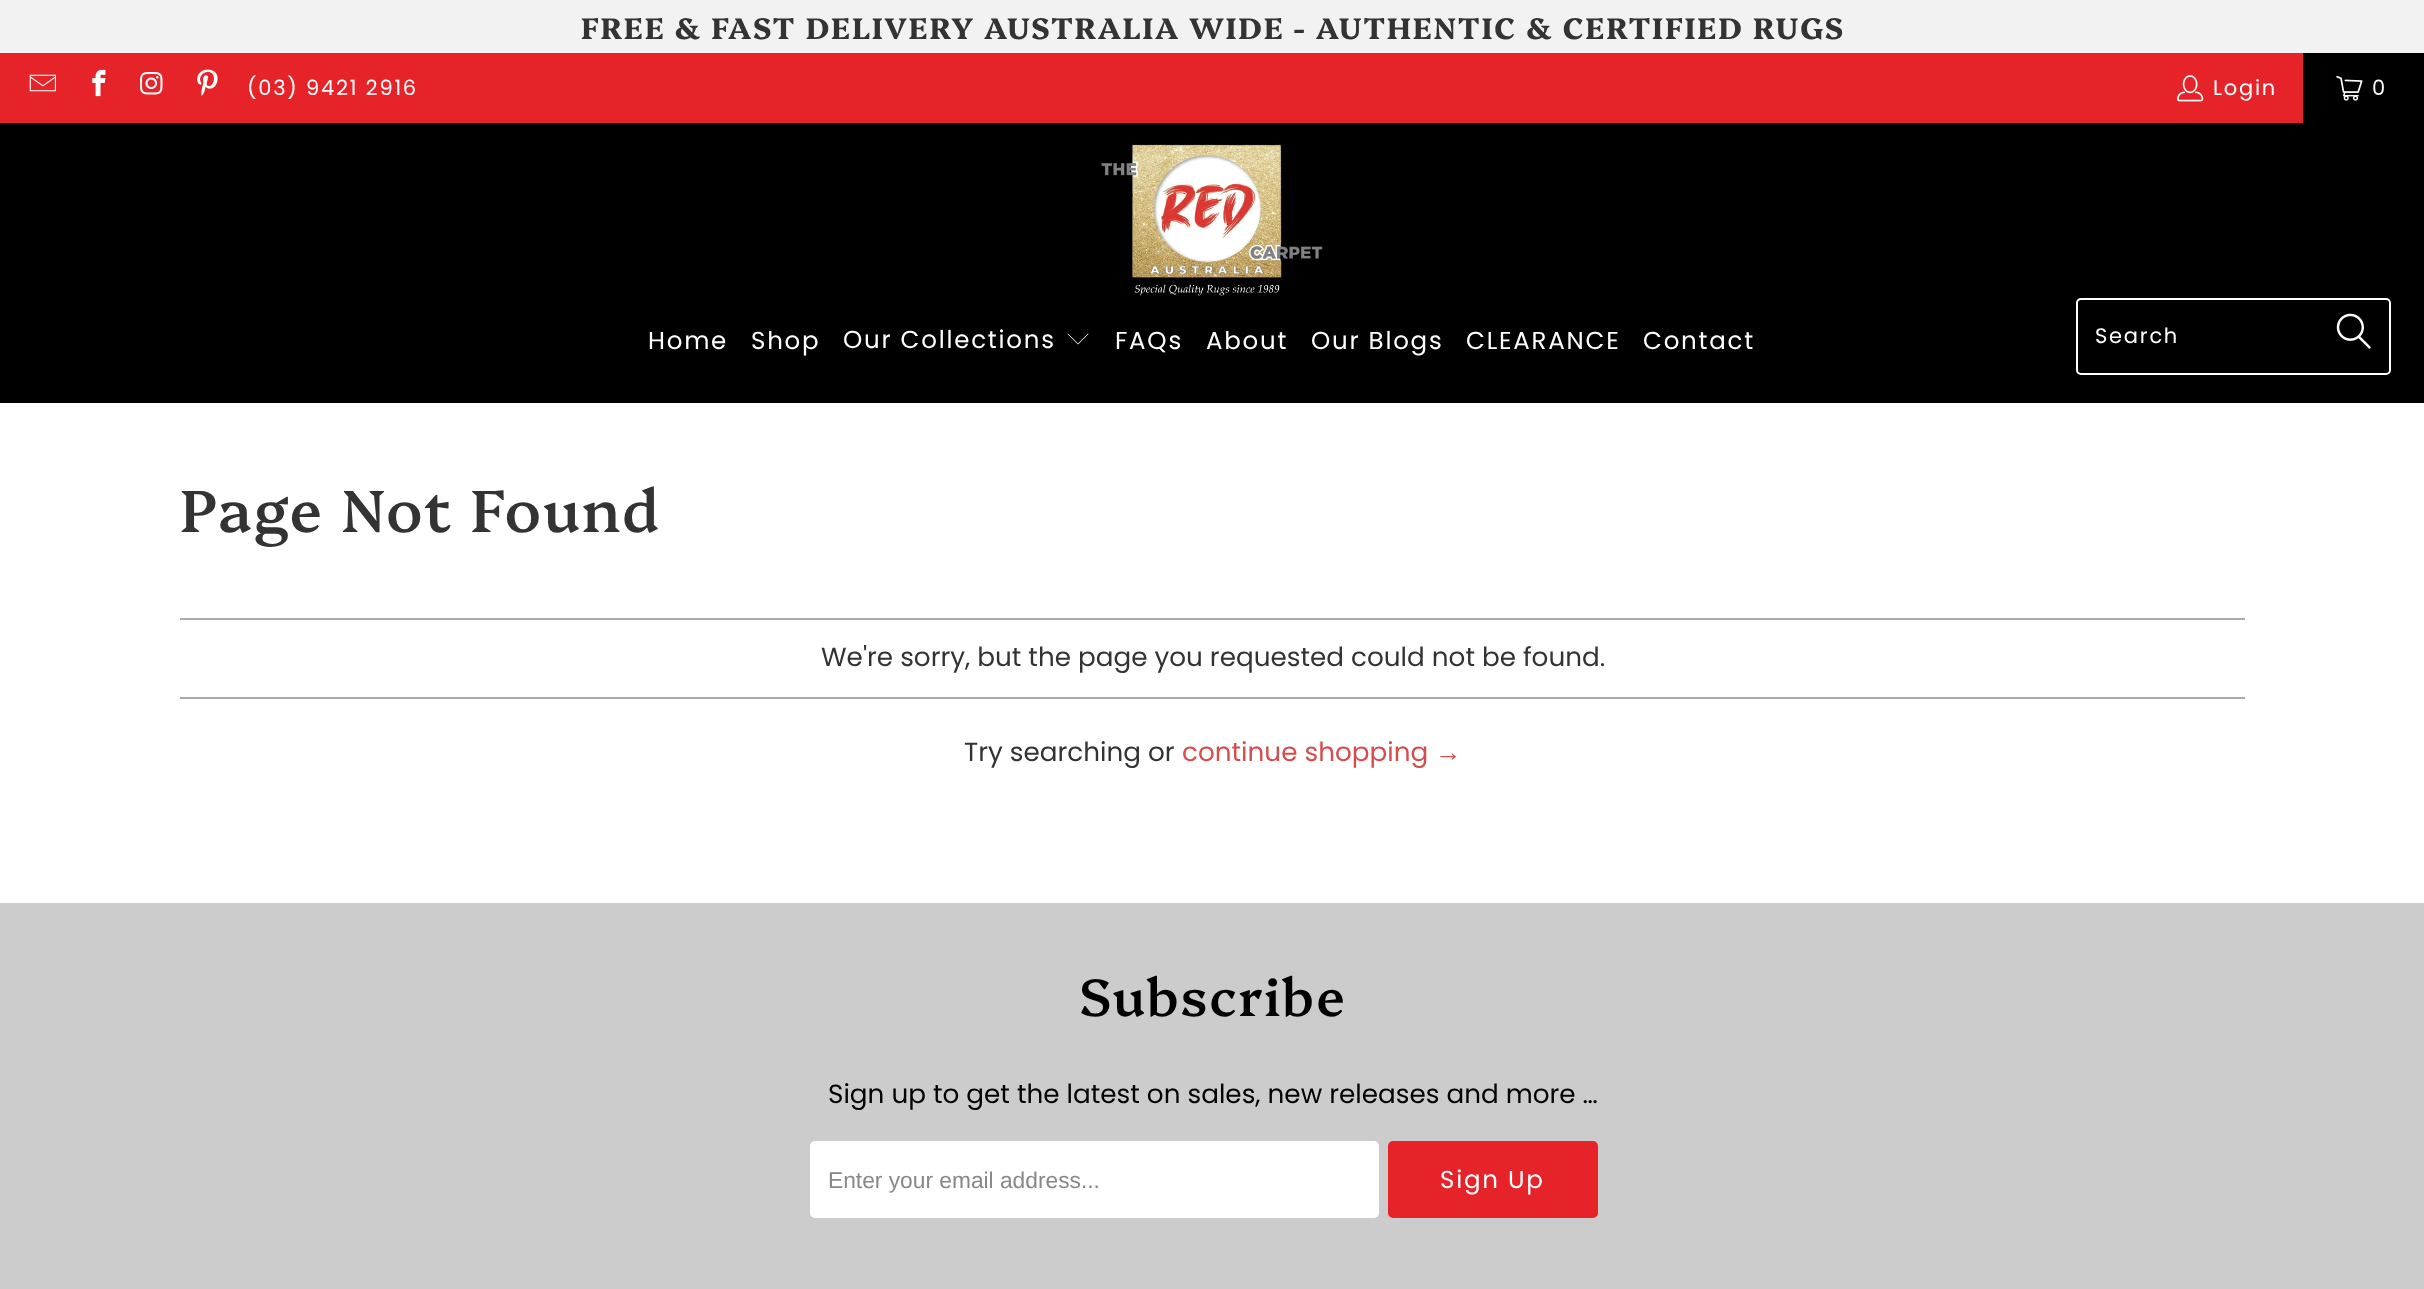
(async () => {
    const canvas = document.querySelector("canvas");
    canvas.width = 2424;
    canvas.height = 1289;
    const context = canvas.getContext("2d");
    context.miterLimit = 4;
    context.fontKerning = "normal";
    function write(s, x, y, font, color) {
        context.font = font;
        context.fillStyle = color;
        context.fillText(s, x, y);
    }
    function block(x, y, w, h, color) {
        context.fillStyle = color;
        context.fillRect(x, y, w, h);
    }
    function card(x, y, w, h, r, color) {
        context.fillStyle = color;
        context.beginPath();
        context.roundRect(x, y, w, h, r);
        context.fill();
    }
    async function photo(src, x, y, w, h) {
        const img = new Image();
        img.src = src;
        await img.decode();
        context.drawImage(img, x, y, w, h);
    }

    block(0, 0, 2424, 1289, "rgb(255, 255, 255)");
    block(0, 0, 2424, 53, "rgb(242, 242, 242)");
    context.letterSpacing = "1.75px";
    write("FREE & FAST DELIVERY AUSTRALIA WIDE - AUTHENTIC & CERTIFIED RUGS", 581, 39, "bold 29.75px Platypi", "rgb(51, 51, 51)");
    block(0, 53, 2303, 70, "rgb(231, 35, 42)");
    await photo("media/1.png", 29, 74, 27, 18);
    await photo("media/2.png", 92, 69, 14, 28);
    await photo("media/3.png", 140, 72, 23, 23);
    await photo("media/4.png", 197, 69, 21, 27);
    write("(03) 9421 2916", 247, 95, "21px Poppins", "rgb(255, 255, 255)");
    await photo("media/5.png", 2177, 75, 27, 27);
    write("Login", 2213, 95, "21px Poppins", "rgb(255, 255, 255)");
    block(2303, 53, 121, 70, "rgb(0, 0, 0)");
    await photo("media/6.png", 2336, 75, 27, 26);
    write("0", 2372, 95, "21px Poppins", "rgb(255, 255, 255)");
    block(0, 123, 2424, 280, "rgb(0, 0, 0)");
    await photo("media/7.png", 1101, 144, 222, 152);
    write("Home", 648, 349, "24.5px Poppins", "rgb(255, 255, 255)");
    write("Shop", 751, 349, "24.5px Poppins", "rgb(255, 255, 255)");
    write("Our Collections", 843, 348, "24.5px Poppins", "rgb(255, 255, 255)");
    context.beginPath();
    context.moveTo(1078, 344.5);
    context.lineTo(1067.5, 334);
    context.lineTo(1068, 333.5);
    context.lineTo(1078, 343.5);
    context.lineTo(1088, 333.5);
    context.lineTo(1088.5, 334);
    context.closePath();
    context.fill();
    write("FAQs", 1115, 349, "24.5px Poppins", "rgb(255, 255, 255)");
    write("About", 1206, 349, "24.5px Poppins", "rgb(255, 255, 255)");
    write("Our Blogs", 1311, 349, "24.5px Poppins", "rgb(255, 255, 255)");
    write("CLEARANCE", 1466, 349, "24.5px Poppins", "rgb(255, 255, 255)");
    write("Contact", 1643, 349, "24.5px Poppins", "rgb(255, 255, 255)");
    context.beginPath();
    context.roundRect(2077, 299, 313, 75, 4);
    context.strokeStyle = "rgb(255, 255, 255)";
    context.lineWidth = 2;
    context.stroke();
    write("Search", 2095, 343, "21px Poppins", "rgb(255, 255, 255)");
    await photo("media/8.png", 2336, 313, 35, 36);
    write("Page Not Found", 180, 532, "500 59.5px Platypi", "rgb(51, 51, 51)");
    block(180, 618, 2065, 2, "rgb(170, 170, 170)");
    block(180, 697, 2065, 2, "rgb(170, 170, 170)");
    context.letterSpacing = "0px";
    write("We're sorry, but the page you requested could not be found.", 821, 666, "26.25px Poppins", "rgb(51, 51, 51)");
    write("Try searching or", 964, 761, "26.25px Poppins", "rgb(51, 51, 51)");
    write("continue shopping", 1182, 761, "26.25px Poppins", "rgb(213, 77, 77)");
    write("→", 1435, 761, "26.25px Liberation Sans", "rgb(213, 77, 77)");
    block(0, 903, 2424, 386, "rgb(204, 204, 204)");
    context.letterSpacing = "1.75px";
    write("Subscribe", 1079, 1016, "500 52.5px Platypi", "rgb(0, 0, 0)");
    context.letterSpacing = "0px";
    write("Sign up to get the latest on sales, new releases and more …", 828, 1103, "26.25px Poppins", "rgb(0, 0, 0)");
    card(810, 1141, 569, 77, 5, "rgb(255, 255, 255)");
    write("Enter your email address...", 828, 1188, "22.75px Liberation Sans", "rgb(136, 136, 136)");
    context.fillStyle = "rgb(231, 35, 42)";
    context.beginPath();
    context.roundRect(1389, 1142, 208, 75, 4);
    context.fill();
    context.strokeStyle = "rgb(231, 35, 42)";
    context.stroke();
    context.letterSpacing = "1.75px";
    write("Sign Up", 1440, 1188, "24.5px Poppins", "rgb(255, 255, 255)");
})();
